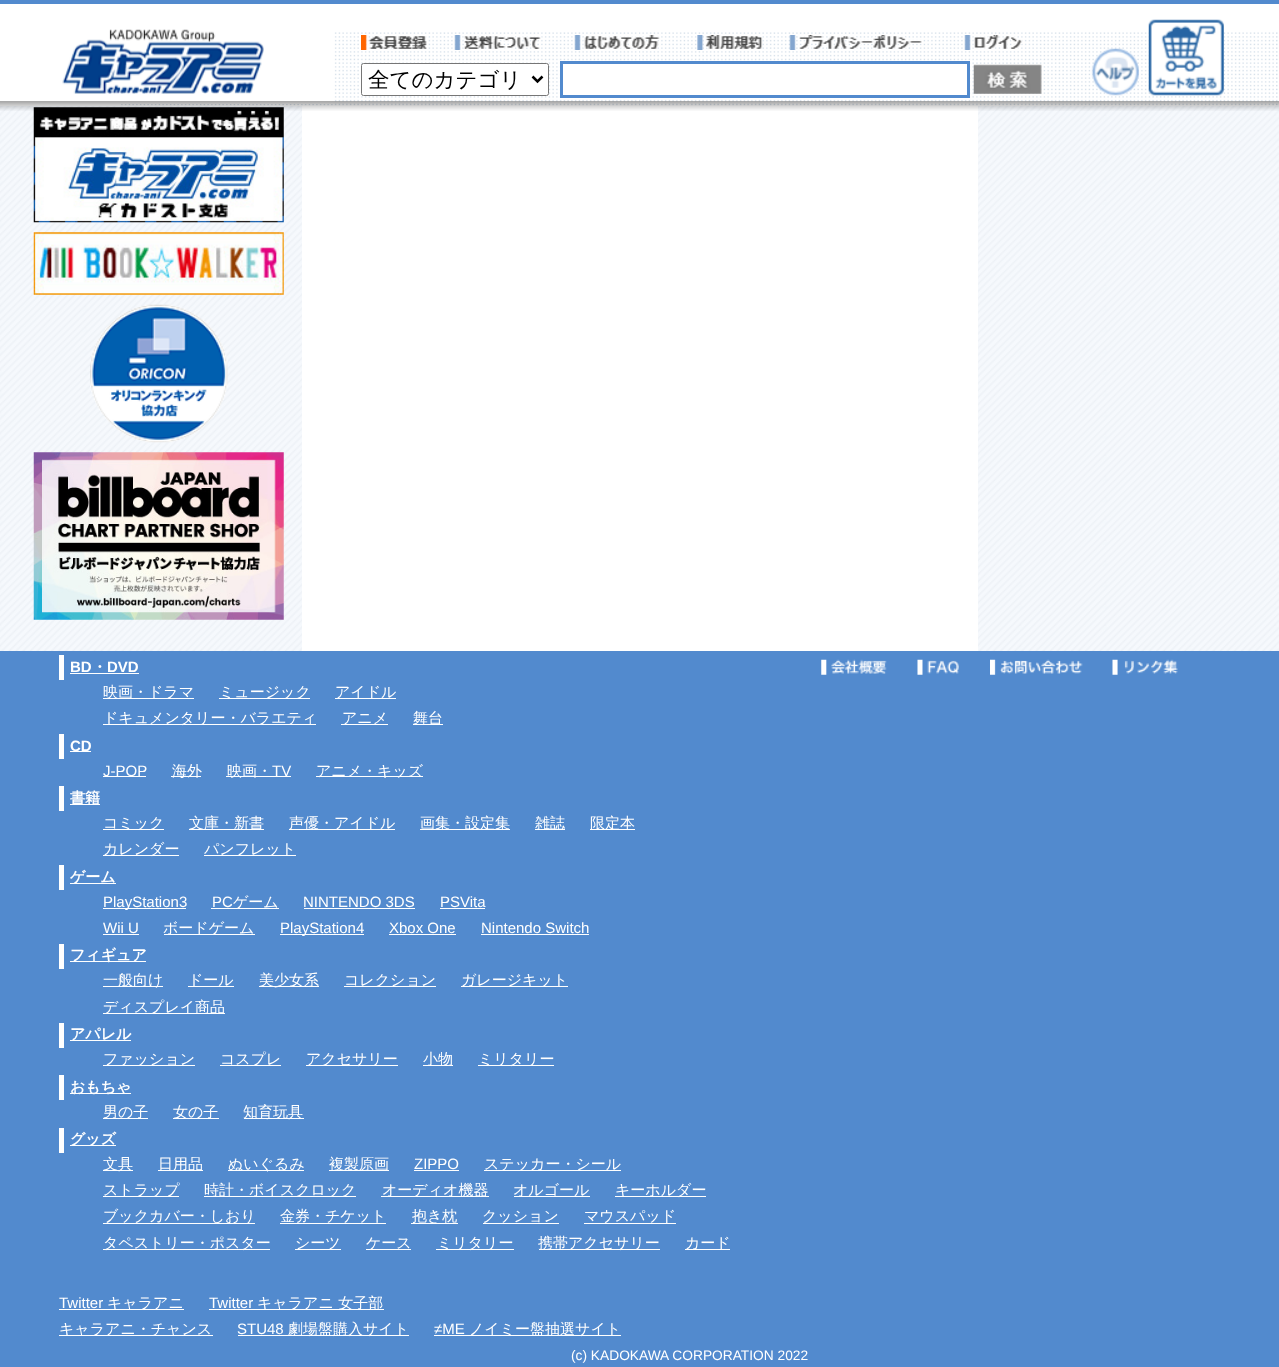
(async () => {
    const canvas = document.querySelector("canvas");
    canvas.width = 1279;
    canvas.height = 1367;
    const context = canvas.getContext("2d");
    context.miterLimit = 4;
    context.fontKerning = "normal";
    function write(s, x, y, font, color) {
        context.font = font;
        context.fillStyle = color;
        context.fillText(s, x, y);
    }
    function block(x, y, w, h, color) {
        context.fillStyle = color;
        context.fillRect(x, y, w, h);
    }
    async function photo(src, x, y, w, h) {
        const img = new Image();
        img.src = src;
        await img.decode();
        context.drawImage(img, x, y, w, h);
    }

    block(0, 0, 1279, 1367, "rgb(255, 255, 255)");
    await photo("media/1.png", 0, 106, 1279, 545);
    await photo("media/2.png", 121, 32, 1157, 74);
    block(0, 0, 1279, 4, "rgb(82, 138, 206)");
    block(121, 32, 212, 72, "rgb(255, 255, 255)");
    await photo("media/3.png", 62, 29, 202, 65);
    await photo("media/4.png", 361, 35, 66, 15);
    await photo("media/5.png", 454, 35, 88, 15);
    await photo("media/6.png", 574, 35, 86, 15);
    await photo("media/7.png", 697, 35, 66, 15);
    await photo("media/8.png", 789, 35, 133, 15);
    await photo("media/9.png", 964, 35, 59, 15);
    context.beginPath();
    context.roundRect(361.5, 63.5, 187, 32, 2);
    context.fill();
    context.strokeStyle = "rgb(118, 118, 118)";
    context.stroke();
    context.beginPath();
    context.moveTo(532.5, 76.5);
    context.lineTo(537.5, 81.5);
    context.lineTo(542.5, 76.5);
    context.strokeStyle = "rgb(0, 0, 0)";
    context.lineWidth = 2.5;
    context.stroke();
    write("全てのカテゴリ", 368, 87, "500 21.5px WenQuanYi Zen Hei", "rgb(0, 0, 0)");
    block(563, 66, 404, 28, "rgb(255, 255, 255)");
    context.strokeStyle = "rgb(82, 138, 206)";
    context.lineWidth = 3;
    context.strokeRect(561.5, 62.5, 407, 34);
    await photo("media/10.png", 973, 64, 69, 30);
    await photo("media/11.png", 1091, 48, 48, 48);
    await photo("media/12.png", 1148, 19, 76, 77);
    block(302, 106, 676, 545, "rgb(255, 255, 255)");
    await photo("media/14.png", 33, 107, 251, 116);
    await photo("media/13.png", 0, 101, 1279, 10);
    await photo("media/15.png", 33, 232, 251, 63);
    await photo("media/16.png", 90, 304, 138, 139);
    await photo("media/17.png", 33, 452, 251, 168);
    block(0, 651, 1279, 716, "rgb(82, 138, 206)");
    block(59, 655, 5, 25, "rgb(255, 255, 255)");
    write("BD", 70, 672, "bold 15px Liberation Sans", "rgb(255, 255, 255)");
    block(70, 673, 69, 1, "rgb(255, 255, 255)");
    write("・", 92, 672, "bold 15px WenQuanYi Zen Hei", "rgb(255, 255, 255)");
    write("DVD", 107, 672, "bold 15px Liberation Sans", "rgb(255, 255, 255)");
    block(103, 698, 91, 1, "rgb(255, 255, 255)");
    write("映画・ドラマ", 103, 697, "500 15px WenQuanYi Zen Hei", "rgb(255, 255, 255)");
    block(219, 698, 91, 1, "rgb(255, 255, 255)");
    write("ミュージック", 219, 697, "500 15px WenQuanYi Zen Hei", "rgb(255, 255, 255)");
    block(335, 698, 61, 1, "rgb(255, 255, 255)");
    write("アイドル", 335, 697, "500 15px WenQuanYi Zen Hei", "rgb(255, 255, 255)");
    block(103, 724, 213, 1, "rgb(255, 255, 255)");
    write("ドキュメンタリー・バラエティ", 103, 723, "500 15px WenQuanYi Zen Hei", "rgb(255, 255, 255)");
    block(341, 724, 47, 1, "rgb(255, 255, 255)");
    write("アニメ", 342, 723, "500 15px WenQuanYi Zen Hei", "rgb(255, 255, 255)");
    block(413, 724, 30, 1, "rgb(255, 255, 255)");
    write("舞台", 413, 723, "500 15px WenQuanYi Zen Hei", "rgb(255, 255, 255)");
    block(59, 734, 5, 25, "rgb(255, 255, 255)");
    block(70, 751, 21, 1, "rgb(255, 255, 255)");
    write("CD", 70, 751, "bold 15px Liberation Sans", "rgb(255, 255, 255)");
    block(103, 776, 43, 1, "rgb(255, 255, 255)");
    write("J-POP", 103, 776, "15px Liberation Sans", "rgb(255, 255, 255)");
    block(171, 776, 30, 1, "rgb(255, 255, 255)");
    write("海外", 172, 776, "500 15px WenQuanYi Zen Hei", "rgb(255, 255, 255)");
    block(226, 776, 65, 1, "rgb(255, 255, 255)");
    write("映画・", 227, 776, "500 15px WenQuanYi Zen Hei", "rgb(255, 255, 255)");
    write("TV", 272, 776, "15px Liberation Sans", "rgb(255, 255, 255)");
    block(316, 776, 107, 1, "rgb(255, 255, 255)");
    write("アニメ・キッズ", 316, 776, "500 15px WenQuanYi Zen Hei", "rgb(255, 255, 255)");
    block(59, 786, 5, 25, "rgb(255, 255, 255)");
    block(70, 804, 30, 1, "rgb(255, 255, 255)");
    write("書籍", 70, 803, "bold 15px WenQuanYi Zen Hei", "rgb(255, 255, 255)");
    block(103, 829, 61, 1, "rgb(255, 255, 255)");
    write("コミック", 103, 828, "500 15px WenQuanYi Zen Hei", "rgb(255, 255, 255)");
    block(189, 829, 75, 1, "rgb(255, 255, 255)");
    write("文庫・新書", 189, 828, "500 15px WenQuanYi Zen Hei", "rgb(255, 255, 255)");
    block(289, 829, 106, 1, "rgb(255, 255, 255)");
    write("声優・アイドル", 289, 828, "500 15px WenQuanYi Zen Hei", "rgb(255, 255, 255)");
    block(420, 829, 90, 1, "rgb(255, 255, 255)");
    write("画集・設定集", 420, 828, "500 15px WenQuanYi Zen Hei", "rgb(255, 255, 255)");
    block(535, 829, 30, 1, "rgb(255, 255, 255)");
    write("雑誌", 535, 828, "500 15px WenQuanYi Zen Hei", "rgb(255, 255, 255)");
    block(590, 829, 45, 1, "rgb(255, 255, 255)");
    write("限定本", 590, 828, "500 15px WenQuanYi Zen Hei", "rgb(255, 255, 255)");
    block(103, 855, 76, 1, "rgb(255, 255, 255)");
    write("カレンダー", 103, 854, "500 15px WenQuanYi Zen Hei", "rgb(255, 255, 255)");
    block(204, 855, 92, 1, "rgb(255, 255, 255)");
    write("パンフレット", 204, 854, "500 15px WenQuanYi Zen Hei", "rgb(255, 255, 255)");
    block(59, 865, 5, 25, "rgb(255, 255, 255)");
    block(70, 883, 46, 1, "rgb(255, 255, 255)");
    write("ゲーム", 70, 882, "bold 15px WenQuanYi Zen Hei", "rgb(255, 255, 255)");
    block(103, 908, 83, 1, "rgb(255, 255, 255)");
    write("PlayStation3", 103, 907, "15px Liberation Sans", "rgb(255, 255, 255)");
    write("PC", 212, 907, "15px Liberation Sans", "rgb(255, 255, 255)");
    block(211, 908, 68, 1, "rgb(255, 255, 255)");
    write("ゲーム", 233, 907, "500 15px WenQuanYi Zen Hei", "rgb(255, 255, 255)");
    write("NINTENDO 3DS", 303, 907, "15px Liberation Sans", "rgb(255, 255, 255)");
    block(304, 908, 111, 1, "rgb(255, 255, 255)");
    write("PSVita", 440, 907, "15px Liberation Sans", "rgb(255, 255, 255)");
    block(440, 908, 45, 1, "rgb(255, 255, 255)");
    write("Wii U", 103, 933, "15px Liberation Sans", "rgb(255, 255, 255)");
    block(103, 934, 36, 1, "rgb(255, 255, 255)");
    block(164, 934, 91, 1, "rgb(255, 255, 255)");
    write("ボードゲーム", 163, 933, "500 15px WenQuanYi Zen Hei", "rgb(255, 255, 255)");
    block(280, 934, 84, 1, "rgb(255, 255, 255)");
    write("PlayStation4", 280, 933, "15px Liberation Sans", "rgb(255, 255, 255)");
    write("Xbox One", 389, 933, "15px Liberation Sans", "rgb(255, 255, 255)");
    block(389, 934, 67, 1, "rgb(255, 255, 255)");
    write("Nintendo Switch", 481, 933, "15px Liberation Sans", "rgb(255, 255, 255)");
    block(481, 934, 108, 1, "rgb(255, 255, 255)");
    block(59, 944, 5, 25, "rgb(255, 255, 255)");
    block(70, 961, 76, 1, "rgb(255, 255, 255)");
    write("フィギュア", 70, 960, "bold 15px WenQuanYi Zen Hei", "rgb(255, 255, 255)");
    block(103, 986, 60, 1, "rgb(255, 255, 255)");
    write("一般向け", 103, 985, "500 15px WenQuanYi Zen Hei", "rgb(255, 255, 255)");
    block(188, 986, 46, 1, "rgb(255, 255, 255)");
    write("ドール", 188, 985, "500 15px WenQuanYi Zen Hei", "rgb(255, 255, 255)");
    block(259, 986, 60, 1, "rgb(255, 255, 255)");
    write("美少女系", 259, 985, "500 15px WenQuanYi Zen Hei", "rgb(255, 255, 255)");
    block(344, 986, 92, 1, "rgb(255, 255, 255)");
    write("コレクション", 344, 985, "500 15px WenQuanYi Zen Hei", "rgb(255, 255, 255)");
    block(461, 986, 107, 1, "rgb(255, 255, 255)");
    write("ガレージキット", 461, 985, "500 15px WenQuanYi Zen Hei", "rgb(255, 255, 255)");
    block(103, 1013, 122, 1, "rgb(255, 255, 255)");
    write("ディスプレイ商品", 103, 1012, "500 15px WenQuanYi Zen Hei", "rgb(255, 255, 255)");
    block(59, 1023, 5, 25, "rgb(255, 255, 255)");
    block(70, 1040, 61, 1, "rgb(255, 255, 255)");
    write("アパレル", 70, 1039, "bold 15px WenQuanYi Zen Hei", "rgb(255, 255, 255)");
    block(103, 1065, 92, 1, "rgb(255, 255, 255)");
    write("ファッション", 103, 1064, "500 15px WenQuanYi Zen Hei", "rgb(255, 255, 255)");
    block(220, 1065, 61, 1, "rgb(255, 255, 255)");
    write("コスプレ", 220, 1064, "500 15px WenQuanYi Zen Hei", "rgb(255, 255, 255)");
    block(306, 1065, 92, 1, "rgb(255, 255, 255)");
    write("アクセサリー", 306, 1064, "500 15px WenQuanYi Zen Hei", "rgb(255, 255, 255)");
    block(423, 1065, 30, 1, "rgb(255, 255, 255)");
    write("小物", 423, 1064, "500 15px WenQuanYi Zen Hei", "rgb(255, 255, 255)");
    block(478, 1065, 76, 1, "rgb(255, 255, 255)");
    write("ミリタリー", 478, 1064, "500 15px WenQuanYi Zen Hei", "rgb(255, 255, 255)");
    block(59, 1075, 5, 25, "rgb(255, 255, 255)");
    block(70, 1093, 61, 1, "rgb(255, 255, 255)");
    write("おもちゃ", 70, 1092, "bold 15px WenQuanYi Zen Hei", "rgb(255, 255, 255)");
    block(103, 1118, 45, 1, "rgb(255, 255, 255)");
    write("男の子", 103, 1117, "500 15px WenQuanYi Zen Hei", "rgb(255, 255, 255)");
    block(173, 1118, 46, 1, "rgb(255, 255, 255)");
    write("女の子", 173, 1117, "500 15px WenQuanYi Zen Hei", "rgb(255, 255, 255)");
    block(244, 1118, 60, 1, "rgb(255, 255, 255)");
    write("知育玩具", 243, 1117, "500 15px WenQuanYi Zen Hei", "rgb(255, 255, 255)");
    block(59, 1128, 5, 25, "rgb(255, 255, 255)");
    block(70, 1145, 46, 1, "rgb(255, 255, 255)");
    write("グッズ", 70, 1144, "bold 15px WenQuanYi Zen Hei", "rgb(255, 255, 255)");
    block(103, 1170, 30, 1, "rgb(255, 255, 255)");
    write("文具", 103, 1169, "500 15px WenQuanYi Zen Hei", "rgb(255, 255, 255)");
    block(158, 1170, 45, 1, "rgb(255, 255, 255)");
    write("日用品", 158, 1169, "500 15px WenQuanYi Zen Hei", "rgb(255, 255, 255)");
    block(228, 1170, 76, 1, "rgb(255, 255, 255)");
    write("ぬいぐるみ", 228, 1169, "500 15px WenQuanYi Zen Hei", "rgb(255, 255, 255)");
    block(329, 1170, 60, 1, "rgb(255, 255, 255)");
    write("複製原画", 329, 1169, "500 15px WenQuanYi Zen Hei", "rgb(255, 255, 255)");
    write("ZIPPO", 414, 1169, "15px Liberation Sans", "rgb(255, 255, 255)");
    block(414, 1170, 45, 1, "rgb(255, 255, 255)");
    block(484, 1170, 137, 1, "rgb(255, 255, 255)");
    write("ステッカー・シール", 484, 1169, "500 15px WenQuanYi Zen Hei", "rgb(255, 255, 255)");
    block(103, 1196, 76, 1, "rgb(255, 255, 255)");
    write("ストラップ", 103, 1195, "500 15px WenQuanYi Zen Hei", "rgb(255, 255, 255)");
    block(204, 1196, 152, 1, "rgb(255, 255, 255)");
    write("時計・ボイスクロック", 204, 1195, "500 15px WenQuanYi Zen Hei", "rgb(255, 255, 255)");
    block(381, 1196, 108, 1, "rgb(255, 255, 255)");
    write("オーディオ機器", 382, 1195, "500 15px WenQuanYi Zen Hei", "rgb(255, 255, 255)");
    block(514, 1196, 76, 1, "rgb(255, 255, 255)");
    write("オルゴール", 513, 1195, "500 15px WenQuanYi Zen Hei", "rgb(255, 255, 255)");
    block(615, 1196, 91, 1, "rgb(255, 255, 255)");
    write("キーホルダー", 615, 1195, "500 15px WenQuanYi Zen Hei", "rgb(255, 255, 255)");
    block(103, 1223, 152, 1, "rgb(255, 255, 255)");
    write("ブックカバー・しおり", 103, 1221, "500 15px WenQuanYi Zen Hei", "rgb(255, 255, 255)");
    write("金券・チケット", 280, 1221, "500 15px WenQuanYi Zen Hei", "rgb(255, 255, 255)");
    block(280, 1223, 106, 1, "rgb(255, 255, 255)");
    block(411, 1223, 47, 1, "rgb(255, 255, 255)");
    write("抱き枕", 412, 1221, "500 15px WenQuanYi Zen Hei", "rgb(255, 255, 255)");
    write("クッション", 482, 1221, "500 15px WenQuanYi Zen Hei", "rgb(255, 255, 255)");
    block(483, 1223, 76, 1, "rgb(255, 255, 255)");
    write("マウスパッド", 584, 1221, "500 15px WenQuanYi Zen Hei", "rgb(255, 255, 255)");
    block(584, 1223, 92, 1, "rgb(255, 255, 255)");
    block(103, 1249, 167, 1, "rgb(255, 255, 255)");
    write("タペストリー・ポスター", 103, 1248, "500 15px WenQuanYi Zen Hei", "rgb(255, 255, 255)");
    block(295, 1249, 46, 1, "rgb(255, 255, 255)");
    write("シーツ", 295, 1248, "500 15px WenQuanYi Zen Hei", "rgb(255, 255, 255)");
    block(366, 1249, 45, 1, "rgb(255, 255, 255)");
    write("ケース", 366, 1248, "500 15px WenQuanYi Zen Hei", "rgb(255, 255, 255)");
    block(436, 1249, 78, 1, "rgb(255, 255, 255)");
    write("ミリタリー", 437, 1248, "500 15px WenQuanYi Zen Hei", "rgb(255, 255, 255)");
    block(539, 1249, 121, 1, "rgb(255, 255, 255)");
    write("携帯アクセサリー", 538, 1248, "500 15px WenQuanYi Zen Hei", "rgb(255, 255, 255)");
    block(685, 1249, 45, 1, "rgb(255, 255, 255)");
    write("カード", 685, 1248, "500 15px WenQuanYi Zen Hei", "rgb(255, 255, 255)");
    write("Twitter", 59, 1308, "15px Liberation Sans", "rgb(255, 255, 255)");
    block(59, 1309, 125, 1, "rgb(255, 255, 255)");
    write("キャラアニ", 107, 1308, "500 15px WenQuanYi Zen Hei", "rgb(255, 255, 255)");
    write("Twitter", 209, 1308, "15px Liberation Sans", "rgb(255, 255, 255)");
    block(209, 1309, 175, 1, "rgb(255, 255, 255)");
    write("キャラアニ 女子部", 257, 1308, "500 15px WenQuanYi Zen Hei", "rgb(255, 255, 255)");
    block(59, 1335, 154, 1, "rgb(255, 255, 255)");
    write("キャラアニ・チャンス", 59, 1334, "500 15px WenQuanYi Zen Hei", "rgb(255, 255, 255)");
    write("STU48", 237, 1334, "15px Liberation Sans", "rgb(255, 255, 255)");
    block(238, 1335, 171, 1, "rgb(255, 255, 255)");
    write("劇場盤購入サイト", 288, 1334, "500 15px WenQuanYi Zen Hei", "rgb(255, 255, 255)");
    write("≠ME", 434, 1334, "15px Liberation Sans", "rgb(255, 255, 255)");
    block(434, 1335, 187, 1, "rgb(255, 255, 255)");
    write("ノイミー盤抽選サイト", 469, 1334, "500 15px WenQuanYi Zen Hei", "rgb(255, 255, 255)");
    await photo("media/18.png", 821, 659, 66, 16);
    await photo("media/19.png", 917, 659, 42, 16);
    await photo("media/20.png", 990, 659, 93, 16);
    await photo("media/21.png", 1112, 659, 66, 16);
    write("(c) KADOKAWA CORPORATION 2022", 571, 1360, "13.75px Liberation Sans", "rgb(255, 255, 255)");
})();
